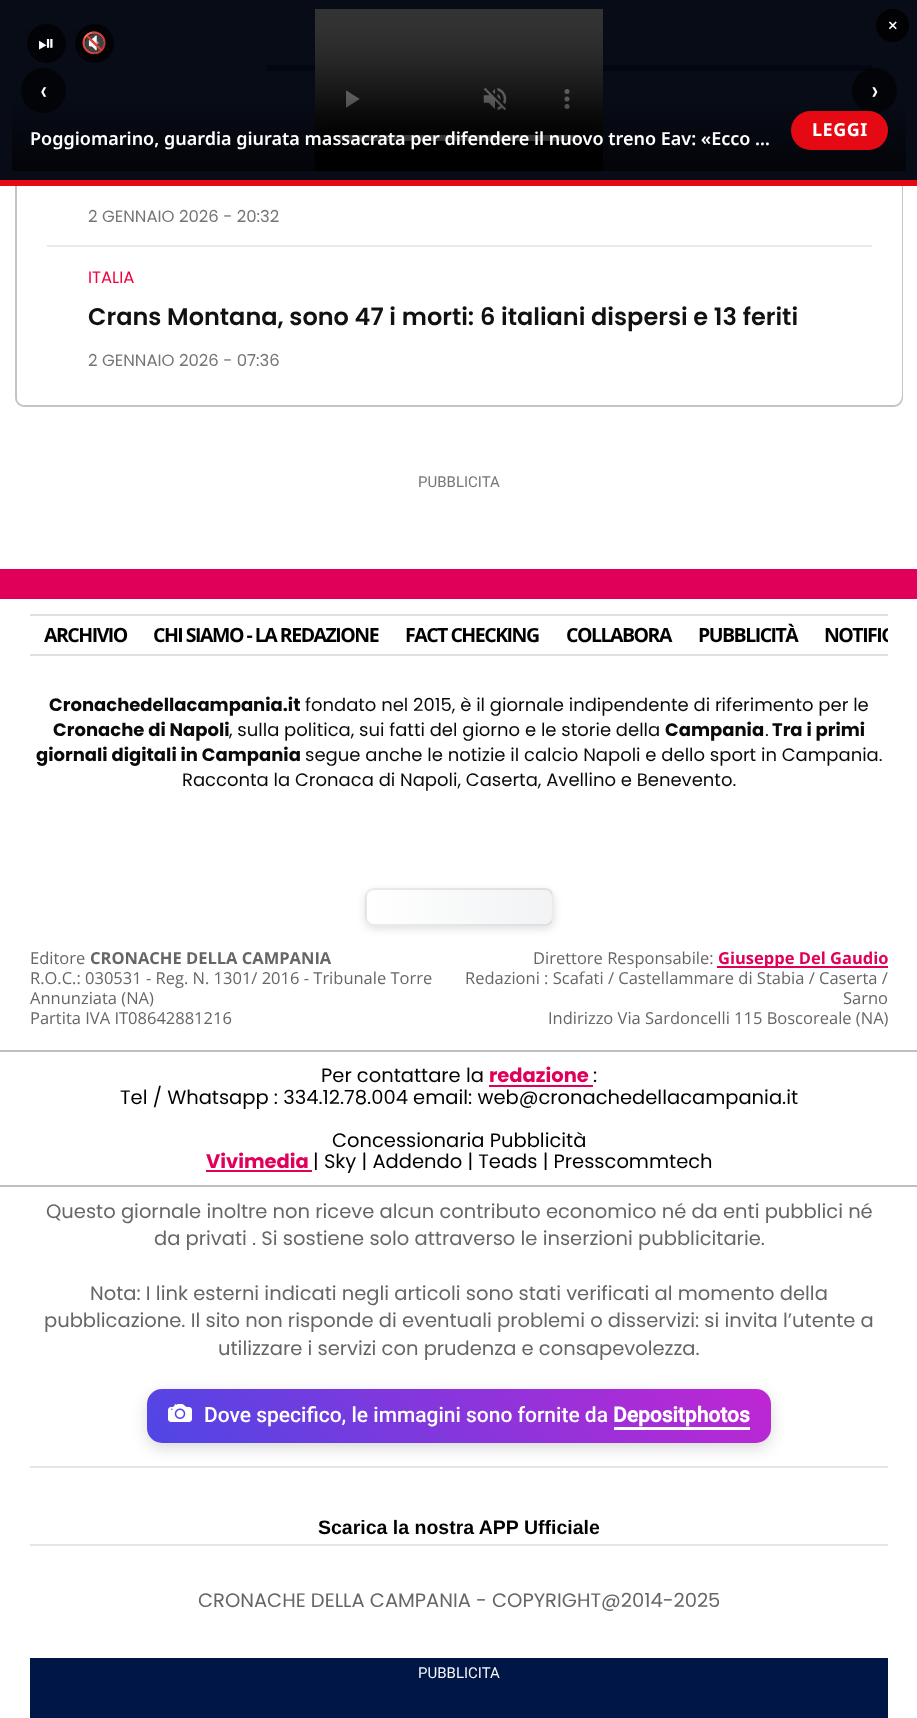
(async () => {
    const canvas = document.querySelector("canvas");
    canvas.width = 917;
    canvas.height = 1718;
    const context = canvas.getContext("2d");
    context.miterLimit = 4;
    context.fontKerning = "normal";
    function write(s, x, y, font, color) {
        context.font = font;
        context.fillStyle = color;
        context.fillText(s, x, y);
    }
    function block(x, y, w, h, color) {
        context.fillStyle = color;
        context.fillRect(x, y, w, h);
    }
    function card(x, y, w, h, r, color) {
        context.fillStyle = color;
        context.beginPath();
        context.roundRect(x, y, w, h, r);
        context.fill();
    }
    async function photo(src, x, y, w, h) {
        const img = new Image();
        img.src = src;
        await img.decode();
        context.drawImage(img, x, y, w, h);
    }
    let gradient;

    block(0, 0, 917, 1718, "rgb(255, 255, 255)");
    context.beginPath();
    context.roundRect(16, 31, 886, 375, 8);
    context.strokeStyle = "rgb(196, 196, 196)";
    context.lineWidth = 2;
    context.stroke();
    card(17, 32, 885, 373, 9, "rgb(255, 255, 255)");
    block(266, 65, 606, 6, "rgb(0, 0, 0)");
    block(0, 0, 917, 180, "rgba(3, 7, 18, 0.98)");
    block(0, 180, 917, 6, "rgb(229, 9, 20)");
    context.fillStyle = "rgb(2, 2, 5)";
    context.beginPath();
    context.arc(892.5, 25.5, 16.5, 0, Math.PI * 2);
    context.fill();
    write("×", 887, 32, "18px Poppins", "rgb(255, 255, 255)");
    context.fillStyle = "rgba(0, 0, 0, 0.7)";
    context.beginPath();
    context.arc(46.5, 43.5, 19.5, 0, Math.PI * 2);
    context.fill();
    write("⏯", 38, 50, "21px FreeSans", "rgb(255, 255, 255)");
    context.fillStyle = "rgba(0, 0, 0, 0.7)";
    context.beginPath();
    context.arc(94.5, 43.5, 19.5, 0, Math.PI * 2);
    context.fill();
    write("🔇", 81, 50, "21px Noto Color Emoji", "rgb(255, 255, 255)");
    block(315, 141, 288, 30, "rgb(0, 0, 0)");
    await photo("media/1.png", 315, 9, 288, 132);
    context.fillStyle = "rgba(0, 0, 0, 0.65)";
    context.beginPath();
    context.arc(43.5, 90.5, 22.5, 0, Math.PI * 2);
    context.fill();
    write("‹", 40, 100, "27px Poppins", "rgb(255, 255, 255)");
    context.fillStyle = "rgba(0, 0, 0, 0.65)";
    context.beginPath();
    context.arc(874.5, 90.5, 22.5, 0, Math.PI * 2);
    context.fill();
    write("›", 871, 100, "27px Poppins", "rgb(255, 255, 255)");
    gradient = context.createLinearGradient(459, 171, 459, 96);
    gradient.addColorStop(0, "rgba(0, 0, 0, 0.65)");
    gradient.addColorStop(1, "rgba(0, 0, 0, 0)");
    context.fillStyle = gradient;
    context.fillRect(12, 99, 894, 72);
    write("Poggiomarino, guardia giurata massacrata per difendere il nuovo treno Eav: «Ecco …", 30, 145, "600 18px Noto Sans", "rgb(255, 255, 255)");
    card(791, 111, 97, 39, 19.5, "rgb(229, 9, 20)");
    context.letterSpacing = "0.5px";
    write("LEGGI", 812, 136, "bold 18px Noto Sans", "rgb(255, 255, 255)");
    context.letterSpacing = "0px";
    write("2 GENNAIO 2026 - 20:32", 88, 222, "16.5px Poppins", "rgb(118, 118, 118)");
    block(47, 245, 825, 2, "rgb(234, 234, 234)");
    write("ITALIA", 88, 283, "16.5px Poppins", "rgb(244, 0, 65)");
    write("Crans Montana, sono 47 i morti: 6 italiani dispersi e 13 feriti", 88, 325, "600 24px Poppins", "rgb(17, 17, 17)");
    write("2 GENNAIO 2026 - 07:36", 88, 366, "16.5px Poppins", "rgb(118, 118, 118)");
    write("PUBBLICITA", 418, 487, "15px Roboto", "rgb(118, 118, 118)");
    block(0, 569, 917, 30, "rgb(224, 0, 89)");
    block(30, 614, 858, 2, "rgb(224, 224, 224)");
    block(30, 654, 858, 2, "rgb(224, 224, 224)");
    context.letterSpacing = "-1.5px";
    write("ARCHIVIO", 44, 642, "bold 19.5px Open Sans", "rgb(0, 0, 0)");
    write("CHI SIAMO - LA REDAZIONE", 153, 642, "bold 19.5px Open Sans", "rgb(0, 0, 0)");
    write("FACT CHECKING", 405, 642, "bold 19.5px Open Sans", "rgb(0, 0, 0)");
    write("COLLABORA", 566, 642, "bold 19.5px Open Sans", "rgb(0, 0, 0)");
    write("PUBBLICITÀ", 698, 642, "bold 19.5px Open Sans", "rgb(0, 0, 0)");
    context.save();
    context.beginPath();
    context.rect(30, 615, 858, 39);
    context.clip();
    write("NOTIFIC", 824, 642, "bold 19.5px Open Sans", "rgb(0, 0, 0)");
    context.restore();
    context.letterSpacing = "0px";
    write("Cronachedellacampania.it", 49, 711, "bold 18px Poppins", "rgb(10, 10, 10)");
    write("fondato nel 2015, è il giornale indipendente di riferimento per le", 305, 711, "18px Poppins", "rgb(10, 10, 10)");
    write("Cronache di Napoli", 53, 736, "bold 18px Poppins", "rgb(10, 10, 10)");
    write(", sulla politica, sui fatti del giorno e le storie della", 229, 736, "18px Poppins", "rgb(10, 10, 10)");
    write("Campania", 665, 736, "bold 18px Poppins", "rgb(10, 10, 10)");
    write(".", 765, 736, "18px Poppins", "rgb(10, 10, 10)");
    write("Tra i primi", 772, 736, "bold 18px Poppins", "rgb(10, 10, 10)");
    write("giornali digitali in Campania", 36, 761, "bold 18px Poppins", "rgb(10, 10, 10)");
    write("segue anche le notizie il calcio Napoli e dello sport in Campania.", 305, 761, "18px Poppins", "rgb(10, 10, 10)");
    write("Racconta la Cronaca di Napoli, Caserta, Avellino e Benevento.", 182, 786, "18px Poppins", "rgb(10, 10, 10)");
    context.fillStyle = "rgba(0, 0, 0, 0.12)";
    context.filter = "blur(4.5px)";
    context.beginPath();
    context.roundRect(365, 891, 189, 38, 9);
    context.fill();
    context.filter = "none";
    context.save();
    context.beginPath();
    context.roundRect(365, 888, 189, 38, 9);
    context.clip();
    gradient = context.createLinearGradient(180, 907, 366, 907);
    gradient.addColorStop(0, "rgb(255, 255, 255)");
    gradient.addColorStop(1, "rgb(241, 243, 244)");
    context.fillStyle = gradient;
    context.fillRect(365, 888, 1, 38);
    gradient = context.createLinearGradient(366, 907, 552, 907);
    gradient.addColorStop(0, "rgb(255, 255, 255)");
    gradient.addColorStop(1, "rgb(241, 243, 244)");
    context.fillStyle = gradient;
    context.fillRect(366, 888, 186, 38);
    gradient = context.createLinearGradient(552, 907, 738, 907);
    gradient.addColorStop(0, "rgb(255, 255, 255)");
    gradient.addColorStop(1, "rgb(241, 243, 244)");
    context.fillStyle = gradient;
    context.fillRect(552, 888, 2, 38);
    context.restore();
    context.beginPath();
    context.roundRect(366, 889, 187, 36, 8);
    context.strokeStyle = "rgba(0, 0, 0, 0.08)";
    context.stroke();
    write("Editore", 30, 964, "16.5px Open Sans", "rgb(102, 102, 102)");
    write("CRONACHE DELLA CAMPANIA", 90, 964, "bold 16.5px Open Sans", "rgb(102, 102, 102)");
    write("R.O.C.: 030531 - Reg. N. 1301/ 2016 - Tribunale Torre", 30, 984, "16.5px Open Sans", "rgb(102, 102, 102)");
    write("Annunziata (NA)", 30, 1004, "16.5px Open Sans", "rgb(102, 102, 102)");
    write("Partita IVA IT08642881216", 30, 1024, "16.5px Open Sans", "rgb(102, 102, 102)");
    write("Direttore Responsabile:", 533, 964, "16.5px Open Sans", "rgb(102, 102, 102)");
    block(717, 966, 171, 2, "rgb(224, 0, 89)");
    write("Giuseppe Del Gaudio", 718, 964, "bold 16.5px Open Sans", "rgb(224, 0, 89)");
    write("Redazioni : Scafati / Castellammare di Stabia / Caserta /", 465, 984, "16.5px Open Sans", "rgb(102, 102, 102)");
    write("Sarno", 843, 1004, "16.5px Open Sans", "rgb(102, 102, 102)");
    write("Indirizzo Via Sardoncelli 115 Boscoreale (NA)", 548, 1024, "16.5px Open Sans", "rgb(102, 102, 102)");
    block(0, 1050, 917, 2, "rgb(191, 191, 191)");
    block(0, 1185, 917, 2, "rgb(191, 191, 191)");
    write("Per contattare la", 321, 1082, "19.5px Poppins", "rgb(0, 0, 0)");
    write("redazione", 489, 1082, "bold 19.5px Poppins", "rgb(224, 0, 89)");
    block(489, 1085, 104, 2, "rgb(224, 0, 89)");
    write(":", 593, 1082, "19.5px Poppins", "rgb(0, 0, 0)");
    write("Tel / Whatsapp : 334.12.78.004 email: web@cronachedellacampania.it", 120, 1104, "19.5px Poppins", "rgb(0, 0, 0)");
    write("Concessionaria Pubblicità", 332, 1147, "19.5px Poppins", "rgb(0, 0, 0)");
    write("Vivimedia", 206, 1168, "bold 19.5px Poppins", "rgb(224, 0, 89)");
    block(206, 1170, 106, 2, "rgb(224, 0, 89)");
    write("| Sky | Addendo | Teads | Presscommtech", 313, 1168, "19.5px Poppins", "rgb(0, 0, 0)");
    write("Questo giornale inoltre non riceve alcun contributo economico né da enti pubblici né", 46, 1218, "19.5px Poppins", "rgb(102, 102, 102)");
    write("da privati . Si sostiene solo attraverso le inserzioni pubblicitarie.", 154, 1245, "19.5px Poppins", "rgb(102, 102, 102)");
    write("Nota: I link esterni indicati negli articoli sono stati verificati al momento della", 90, 1300, "19.5px Poppins", "rgb(102, 102, 102)");
    write("pubblicazione. Il sito non risponde di eventuali problemi o disservizi: si invita l’utente a", 44, 1327, "19.5px Poppins", "rgb(102, 102, 102)");
    write("utilizzare i servizi con prudenza e consapevolezza.", 218, 1355, "19.5px Poppins", "rgb(102, 102, 102)");
    context.fillStyle = "rgba(0, 0, 0, 0.15)";
    context.filter = "blur(7.5px)";
    context.beginPath();
    context.roundRect(147, 1394, 624, 54, 15);
    context.fill();
    context.filter = "none";
    gradient = context.createLinearGradient(290, 1586, 629, 1247);
    gradient.addColorStop(0, "rgb(79, 70, 229)");
    gradient.addColorStop(1, "rgb(192, 38, 211)");
    context.fillStyle = gradient;
    context.beginPath();
    context.roundRect(147, 1389, 624, 54, 15);
    context.fill();
    await photo("media/2.png", 168, 1403, 24, 19);
    write("Dove specifico, le immagini sono fornite da", 204, 1422, "500 21px Roboto", "rgb(255, 255, 255)");
    write("Depositphotos", 613, 1422, "bold 21px Roboto", "rgb(255, 255, 255)");
    block(614, 1427, 136, 3, "rgb(255, 255, 255)");
    block(30, 1466, 858, 2, "rgb(229, 229, 229)");
    block(30, 1544, 858, 2, "rgb(229, 229, 229)");
    write("Scarica la nostra APP Ufficiale", 318, 1534, "bold 19.5px Liberation Sans", "rgb(0, 0, 0)");
    write("CRONACHE DELLA CAMPANIA - COPYRIGHT@2014-2025", 198, 1607, "19.5px Poppins", "rgb(102, 102, 102)");
    block(30, 1658, 858, 60, "rgb(0, 22, 71)");
    write("PUBBLICITA", 418, 1678, "15px Roboto", "rgb(247, 247, 247)");
})();
